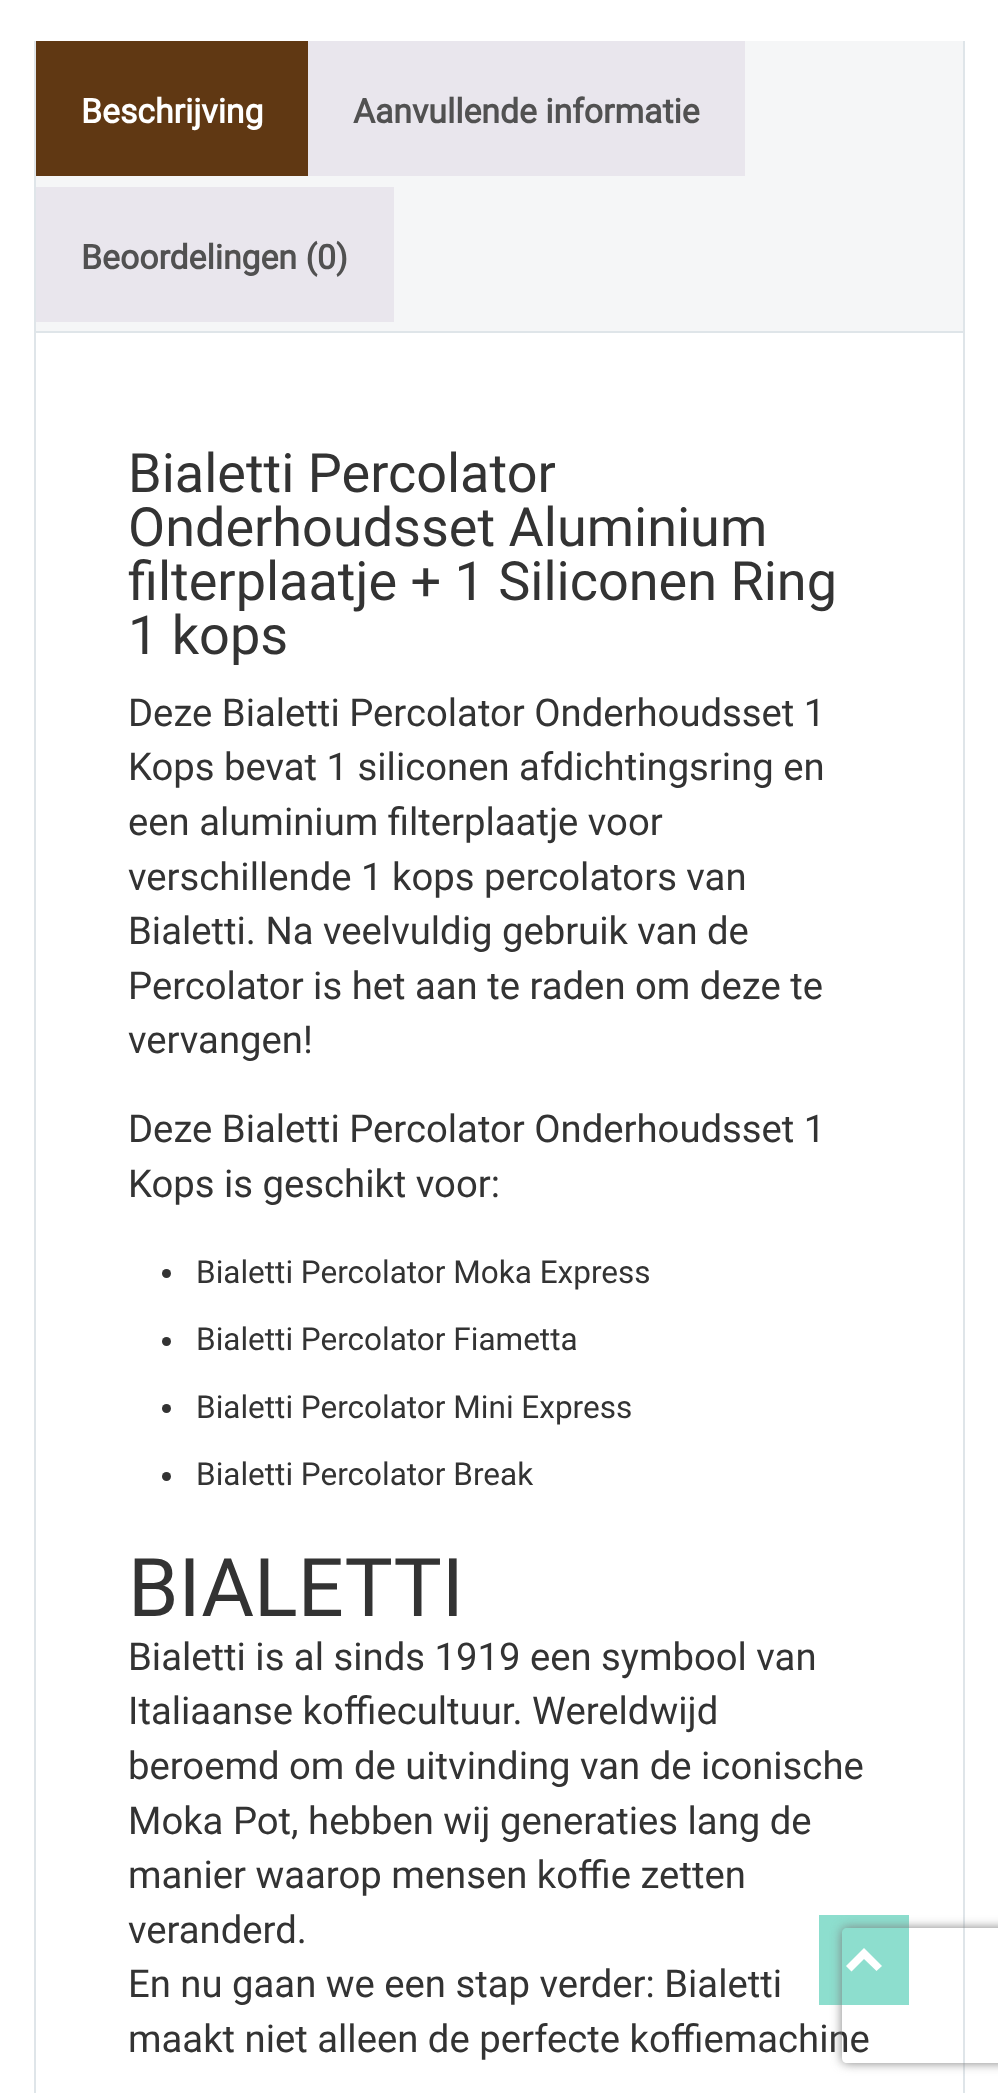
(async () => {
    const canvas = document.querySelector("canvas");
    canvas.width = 998;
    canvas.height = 2093;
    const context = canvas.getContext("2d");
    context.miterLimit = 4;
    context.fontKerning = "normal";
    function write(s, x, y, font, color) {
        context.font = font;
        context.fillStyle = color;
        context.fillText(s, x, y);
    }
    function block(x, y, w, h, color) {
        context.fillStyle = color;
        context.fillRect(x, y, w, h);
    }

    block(0, 0, 998, 2093, "rgb(255, 255, 255)");
    block(963, 41, 2, 2052, "rgb(223, 229, 233)");
    block(34, 41, 2, 2052, "rgb(223, 229, 233)");
    block(36, 41, 927, 290, "rgb(245, 246, 247)");
    block(36, 41, 272, 135, "rgb(96, 56, 19)");
    write("Beschrijving", 81, 123, "bold 33.75px Roboto", "rgb(255, 255, 255)");
    block(308, 41, 437, 135, "rgb(233, 230, 237)");
    write("Aanvullende informatie", 353, 123, "bold 33.75px Roboto", "rgb(81, 81, 81)");
    block(36, 187, 358, 135, "rgb(233, 230, 237)");
    write("Beoordelingen (0)", 81, 269, "bold 33.75px Roboto", "rgb(81, 81, 81)");
    block(36, 331, 927, 2, "rgb(223, 229, 233)");
    write("Bialetti Percolator", 128, 492, "54px Roboto", "rgb(51, 51, 51)");
    write("Onderhoudsset Aluminium", 128, 546, "54px Roboto", "rgb(51, 51, 51)");
    write("filterplaatje + 1 Siliconen Ring", 128, 600, "54px Roboto", "rgb(51, 51, 51)");
    write("1 kops", 128, 654, "54px Roboto", "rgb(51, 51, 51)");
    write("Deze Bialetti Percolator Onderhoudsset 1", 128, 726, "38.25px Roboto", "rgb(51, 51, 51)");
    write("Kops bevat 1 siliconen afdichtingsring en", 128, 780, "38.25px Roboto", "rgb(51, 51, 51)");
    write("een aluminium filterplaatje voor", 128, 835, "38.25px Roboto", "rgb(51, 51, 51)");
    write("verschillende 1 kops percolators van", 128, 890, "38.25px Roboto", "rgb(51, 51, 51)");
    write("Bialetti. Na veelvuldig gebruik van de", 128, 944, "38.25px Roboto", "rgb(51, 51, 51)");
    write("Percolator is het aan te raden om deze te", 128, 999, "38.25px Roboto", "rgb(51, 51, 51)");
    write("vervangen!", 128, 1053, "38.25px Roboto", "rgb(51, 51, 51)");
    write("Deze Bialetti Percolator Onderhoudsset 1", 128, 1142, "38.25px Roboto", "rgb(51, 51, 51)");
    write("Kops is geschikt voor:", 128, 1197, "38.25px Roboto", "rgb(51, 51, 51)");
    context.beginPath();
    context.arc(166.5, 1273.5, 4.5, 0, Math.PI * 2);
    context.fill();
    write("Bialetti Percolator Moka Express", 196, 1283, "31.5px Roboto", "rgb(51, 51, 51)");
    context.beginPath();
    context.arc(166.5, 1341.5, 4.5, 0, Math.PI * 2);
    context.fill();
    write("Bialetti Percolator Fiametta", 196, 1350, "31.5px Roboto", "rgb(51, 51, 51)");
    context.beginPath();
    context.arc(166.5, 1408.5, 4.5, 0, Math.PI * 2);
    context.fill();
    write("Bialetti Percolator Mini Express", 196, 1418, "31.5px Roboto", "rgb(51, 51, 51)");
    context.beginPath();
    context.arc(166.5, 1476.5, 4.5, 0, Math.PI * 2);
    context.fill();
    write("Bialetti Percolator Break", 196, 1485, "31.5px Roboto", "rgb(51, 51, 51)");
    write("BIALETTI", 128, 1616, "81px Roboto", "rgb(51, 51, 51)");
    write("Bialetti is al sinds 1919 een symbool van", 128, 1670, "38.25px Roboto", "rgb(51, 51, 51)");
    write("Italiaanse koffiecultuur. Wereldwijd", 128, 1724, "38.25px Roboto", "rgb(51, 51, 51)");
    write("beroemd om de uitvinding van de iconische", 128, 1779, "38.25px Roboto", "rgb(51, 51, 51)");
    write("Moka Pot, hebben wij generaties lang de", 128, 1834, "38.25px Roboto", "rgb(51, 51, 51)");
    write("manier waarop mensen koffie zetten", 128, 1888, "38.25px Roboto", "rgb(51, 51, 51)");
    write("veranderd.", 128, 1943, "38.25px Roboto", "rgb(51, 51, 51)");
    write("En nu gaan we een stap verder: Bialetti", 128, 1997, "38.25px Roboto", "rgb(51, 51, 51)");
    write("maakt niet alleen de perfecte koffiemachine", 128, 2052, "38.25px Roboto", "rgb(51, 51, 51)");
    block(819, 1915, 90, 90, "rgb(141, 222, 206)");
    context.fillStyle = "rgb(255, 255, 255)";
    context.beginPath();
    context.moveTo(864, 1948);
    context.lineTo(882, 1966);
    context.lineTo(876.5, 1971);
    context.lineTo(864, 1959);
    context.lineTo(851.5, 1971.5);
    context.lineTo(846, 1966);
    context.closePath();
    context.fill();
    context.save();
    context.beginPath();
    context.moveTo(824, 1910);
    context.lineTo(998, 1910);
    context.lineTo(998, 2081);
    context.lineTo(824, 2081);
    context.closePath();
    context.moveTo(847, 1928);
    context.lineTo(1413, 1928);
    context.bezierCurveTo(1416, 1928, 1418, 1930, 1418, 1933);
    context.lineTo(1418, 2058);
    context.bezierCurveTo(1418, 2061, 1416, 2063, 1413, 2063);
    context.lineTo(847, 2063);
    context.bezierCurveTo(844, 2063, 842, 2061, 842, 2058);
    context.lineTo(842, 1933);
    context.bezierCurveTo(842, 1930, 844, 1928, 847, 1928);
    context.closePath();
    context.clip("evenodd");
    context.fillStyle = "rgb(128, 128, 128)";
    context.filter = "blur(5.5px)";
    context.beginPath();
    context.roundRect(842, 1928, 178, 135, 5);
    context.fill();
    context.filter = "none";
    context.restore();
})();
